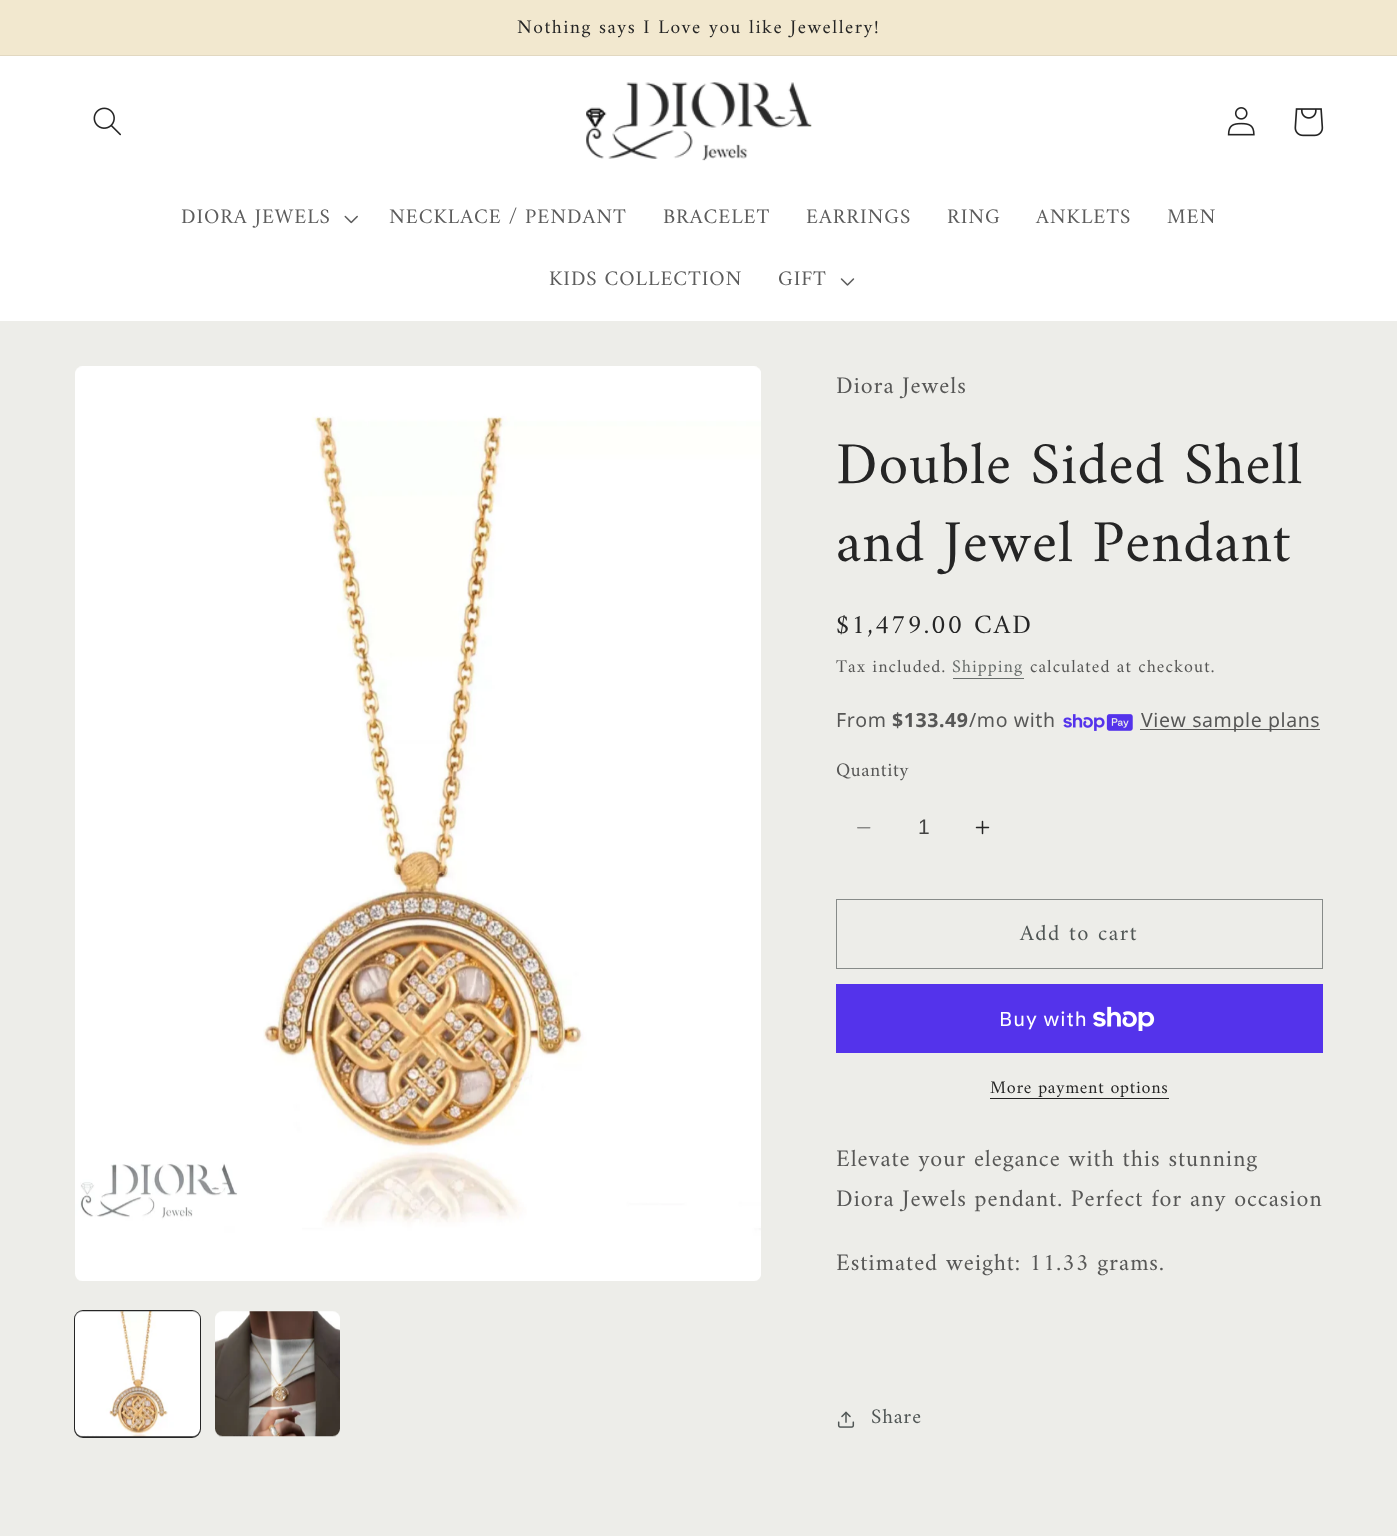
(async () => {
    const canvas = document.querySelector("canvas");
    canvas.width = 1397;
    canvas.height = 1536;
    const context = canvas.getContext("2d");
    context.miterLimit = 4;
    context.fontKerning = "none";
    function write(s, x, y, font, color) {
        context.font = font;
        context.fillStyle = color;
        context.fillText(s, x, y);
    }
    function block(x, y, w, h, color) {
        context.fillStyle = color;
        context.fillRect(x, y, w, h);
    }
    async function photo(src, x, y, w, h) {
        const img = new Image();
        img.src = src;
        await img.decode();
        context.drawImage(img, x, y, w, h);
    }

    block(0, 0, 1397, 1536, "rgb(237, 237, 233)");
    block(0, 0, 1397, 55, "rgb(242, 232, 207)");
    block(0, 55, 1397, 1, "rgb(226, 216, 193)");
    context.letterSpacing = "1.5px";
    write("Nothing says I Love you like Jewellery!", 517, 33, "19.5px Amiri", "rgb(37, 37, 37)");
    block(0, 56, 1397, 265, "rgb(255, 255, 255)");
    await photo("media/1.png", 93, 107, 28, 29);
    await photo("media/2.png", 586, 82, 226, 79);
    await photo("media/3.png", 1227, 107, 28, 29);
    await photo("media/4.png", 1294, 108, 30, 29);
    context.letterSpacing = "0.9px";
    write("DIORA JEWELS", 181, 223, "21px Amiri", "rgb(92, 92, 92)");
    await photo("media/5.png", 344, 215, 14, 9);
    write("NECKLACE / PENDANT", 389, 223, "21px Amiri", "rgb(92, 92, 92)");
    write("BRACELET", 663, 223, "21px Amiri", "rgb(92, 92, 92)");
    write("EARRINGS", 806, 223, "21px Amiri", "rgb(92, 92, 92)");
    write("RING", 947, 223, "21px Amiri", "rgb(92, 92, 92)");
    write("ANKLETS", 1036, 223, "21px Amiri", "rgb(92, 92, 92)");
    write("MEN", 1167, 223, "21px Amiri", "rgb(92, 92, 92)");
    write("KIDS COLLECTION", 549, 285, "21px Amiri", "rgb(92, 92, 92)");
    write("GIFT", 778, 285, "21px Amiri", "rgb(92, 92, 92)");
    await photo("media/6.png", 840, 278, 15, 8);
    await photo("media/7.png", 75, 366, 686, 915);
    context.beginPath();
    context.roundRect(75, 1311, 125, 126, 8);
    context.strokeStyle = "rgb(37, 37, 37)";
    context.lineWidth = 2;
    context.stroke();
    await photo("media/8.png", 75, 1311, 125, 126);
    await photo("media/9.png", 215, 1311, 125, 126);
    write("Diora Jewels", 836, 393, "24px Amiri", "rgb(87, 87, 86)");
    write("Double Sided Shell", 836, 483, "60px Amiri", "rgb(37, 37, 37)");
    write("and Jewel Pendant", 836, 561, "60px Amiri", "rgb(37, 37, 37)");
    context.letterSpacing = "2px";
    write("$1,479.00 CAD", 836, 633, "27px Amiri", "rgb(37, 37, 37)");
    context.letterSpacing = "1.05px";
    write("Tax included.", 836, 672, "18px Amiri", "rgb(87, 87, 86)");
    write("Shipping", 952, 672, "18px Amiri", "rgb(104, 109, 107)");
    block(953, 678, 71, 1, "rgb(104, 109, 107)");
    write("calculated at checkout.", 1030, 672, "18px Amiri", "rgb(87, 87, 86)");
    context.letterSpacing = "0.6px";
    write("From", 836, 727, "19.5px Noto Sans", "rgb(87, 87, 86)");
    write("$133.49", 892, 727, "bold 19.5px Noto Sans", "rgb(87, 87, 86)");
    write("/mo with", 969, 727, "19.5px Noto Sans", "rgb(87, 87, 86)");
    await photo("media/10.png", 1063, 714, 70, 17);
    block(1140, 729, 180, 1, "rgb(87, 87, 86)");
    write("View sample plans", 1141, 727, "19.5px Noto Sans", "rgb(87, 87, 86)");
    write("Quantity", 836, 776, "19.5px Amiri", "rgb(87, 87, 86)");
    await photo("media/11.png", 857, 827, 14, 2);
    context.letterSpacing = "0px";
    write("1", 918, 834, "21px Liberation Sans", "rgb(67, 67, 66)");
    await photo("media/12.png", 975, 820, 15, 15);
    context.strokeStyle = "rgb(135, 139, 137)";
    context.lineWidth = 1;
    context.strokeRect(836.5, 899.5, 486, 69);
    context.letterSpacing = "1.5px";
    write("Add to cart", 1020, 940, "22.5px Amiri", "rgb(80, 86, 85)");
    block(836, 984, 487, 69, "rgb(84, 51, 235)");
    context.letterSpacing = "0.9px";
    write("Buy with", 999, 1026, "20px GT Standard", "rgb(255, 255, 255)");
    await photo("media/13.png", 1093, 1006, 62, 25);
    context.letterSpacing = "0.75px";
    write("More payment options", 990, 1093, "18px Amiri", "rgb(37, 37, 37)");
    block(990, 1098, 179, 1, "rgb(37, 37, 37)");
    context.letterSpacing = "0.9px";
    write("Elevate your elegance with this stunning", 836, 1166, "24px Amiri", "rgb(87, 87, 86)");
    write("Diora Jewels pendant. Perfect for any occasion", 836, 1206, "24px Amiri", "rgb(87, 87, 86)");
    write("Estimated weight: 11.33 grams.", 836, 1270, "24px Amiri", "rgb(87, 87, 86)");
    await photo("media/14.png", 837, 1411, 18, 17);
    write("Share", 871, 1423, "21px Amiri", "rgb(80, 86, 85)");
})();
